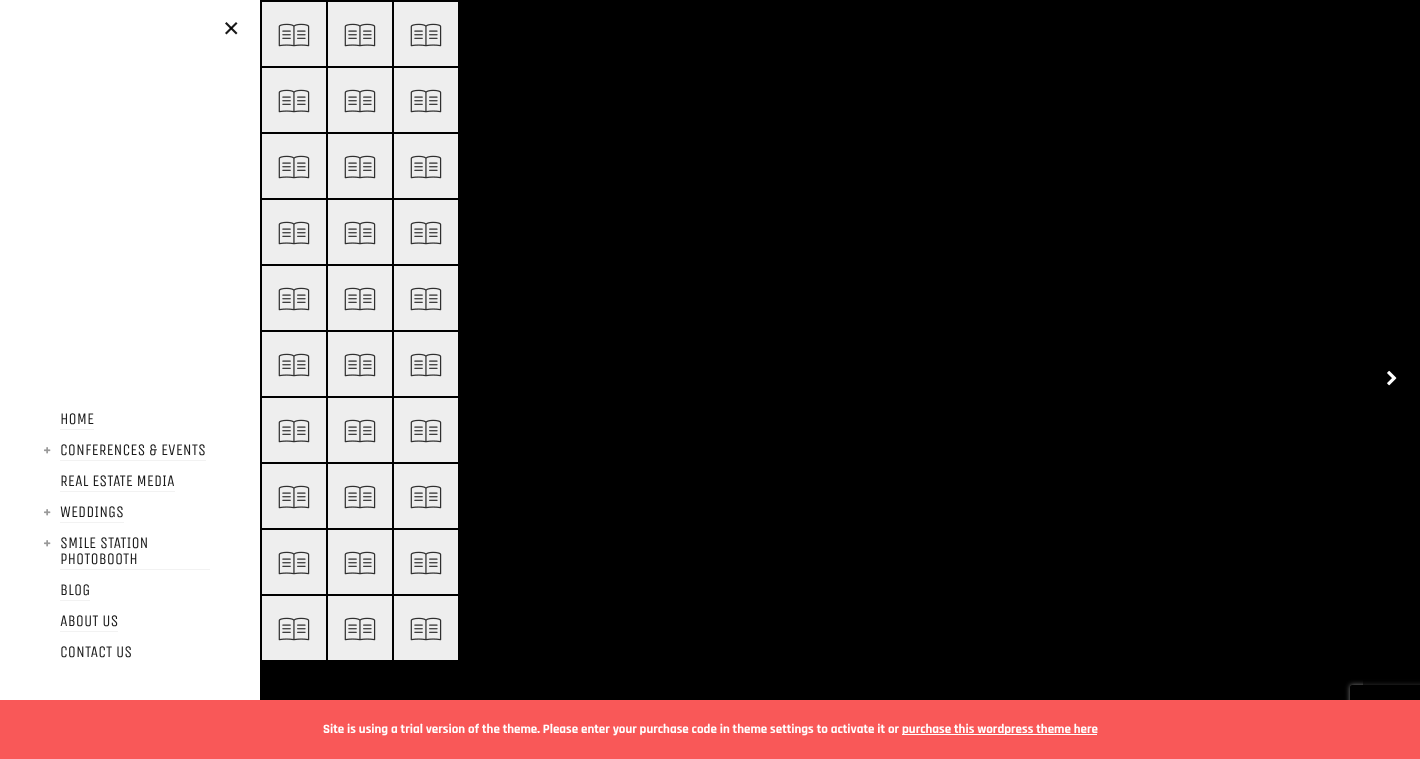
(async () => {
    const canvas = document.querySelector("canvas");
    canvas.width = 1420;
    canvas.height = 759;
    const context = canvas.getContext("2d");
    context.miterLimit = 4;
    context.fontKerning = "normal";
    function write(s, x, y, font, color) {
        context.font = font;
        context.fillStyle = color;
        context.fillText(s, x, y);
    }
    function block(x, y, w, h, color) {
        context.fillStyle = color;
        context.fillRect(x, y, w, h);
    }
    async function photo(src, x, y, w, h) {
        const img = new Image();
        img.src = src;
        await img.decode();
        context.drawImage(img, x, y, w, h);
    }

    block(0, 0, 1420, 759, "rgb(0, 0, 0)");
    block(0, 0, 260, 700, "rgb(255, 255, 255)");
    context.fillStyle = "rgb(26, 26, 26)";
    context.beginPath();
    context.moveTo(237.5, 23.5);
    context.lineTo(226.5, 34.5);
    context.lineTo(225, 33);
    context.lineTo(236, 22);
    context.closePath();
    context.fill();
    context.fillStyle = "rgba(0, 0, 0, 0.9)";
    context.beginPath();
    context.moveTo(226.5, 22);
    context.lineTo(237.5, 33);
    context.lineTo(236, 34.5);
    context.lineTo(225, 23.5);
    context.closePath();
    context.fill();
    block(60, 429, 34, 1, "rgb(242, 242, 242)");
    write("HOME", 60, 424, "16px Unica One", "rgb(26, 26, 26)");
    block(60, 460, 146, 1, "rgb(242, 242, 242)");
    await photo("media/1.png", 44, 447, 7, 7);
    write("CONFERENCES & EVENTS", 60, 455, "16px Unica One", "rgb(26, 26, 26)");
    block(60, 491, 115, 1, "rgb(242, 242, 242)");
    write("REAL ESTATE MEDIA", 60, 486, "16px Unica One", "rgb(26, 26, 26)");
    block(60, 522, 64, 1, "rgb(242, 242, 242)");
    await photo("media/1.png", 44, 509, 7, 7);
    write("WEDDINGS", 60, 517, "16px Unica One", "rgb(26, 26, 26)");
    block(60, 569, 150, 1, "rgb(242, 242, 242)");
    await photo("media/1.png", 44, 540, 7, 7);
    write("SMILE STATION", 60, 548, "16px Unica One", "rgb(26, 26, 26)");
    write("PHOTOBOOTH", 60, 564, "16px Unica One", "rgb(26, 26, 26)");
    block(60, 600, 30, 1, "rgb(242, 242, 242)");
    write("BLOG", 60, 595, "16px Unica One", "rgb(26, 26, 26)");
    block(60, 631, 58, 1, "rgb(242, 242, 242)");
    write("ABOUT US", 60, 626, "16px Unica One", "rgb(26, 26, 26)");
    write("CONTACT US", 60, 657, "16px Unica One", "rgb(26, 26, 26)");
    block(262, 2, 64, 64, "rgb(238, 238, 238)");
    await photo("media/2.png", 278, 23, 32, 24);
    block(328, 2, 64, 64, "rgb(238, 238, 238)");
    await photo("media/2.png", 344, 23, 32, 24);
    block(394, 2, 64, 64, "rgb(238, 238, 238)");
    await photo("media/2.png", 410, 23, 32, 24);
    block(262, 68, 64, 64, "rgb(238, 238, 238)");
    await photo("media/2.png", 278, 89, 32, 24);
    block(328, 68, 64, 64, "rgb(238, 238, 238)");
    await photo("media/2.png", 344, 89, 32, 24);
    block(394, 68, 64, 64, "rgb(238, 238, 238)");
    await photo("media/2.png", 410, 89, 32, 24);
    block(262, 134, 64, 64, "rgb(238, 238, 238)");
    await photo("media/2.png", 278, 155, 32, 24);
    block(328, 134, 64, 64, "rgb(238, 238, 238)");
    await photo("media/2.png", 344, 155, 32, 24);
    block(394, 134, 64, 64, "rgb(238, 238, 238)");
    await photo("media/2.png", 410, 155, 32, 24);
    block(262, 200, 64, 64, "rgb(238, 238, 238)");
    await photo("media/2.png", 278, 221, 32, 24);
    block(328, 200, 64, 64, "rgb(238, 238, 238)");
    await photo("media/2.png", 344, 221, 32, 24);
    block(394, 200, 64, 64, "rgb(238, 238, 238)");
    await photo("media/2.png", 410, 221, 32, 24);
    block(262, 266, 64, 64, "rgb(238, 238, 238)");
    await photo("media/2.png", 278, 287, 32, 24);
    block(328, 266, 64, 64, "rgb(238, 238, 238)");
    await photo("media/2.png", 344, 287, 32, 24);
    block(394, 266, 64, 64, "rgb(238, 238, 238)");
    await photo("media/2.png", 410, 287, 32, 24);
    block(262, 332, 64, 64, "rgb(238, 238, 238)");
    await photo("media/2.png", 278, 353, 32, 24);
    block(328, 332, 64, 64, "rgb(238, 238, 238)");
    await photo("media/2.png", 344, 353, 32, 24);
    block(394, 332, 64, 64, "rgb(238, 238, 238)");
    await photo("media/2.png", 410, 353, 32, 24);
    block(262, 398, 64, 64, "rgb(238, 238, 238)");
    await photo("media/2.png", 278, 419, 32, 24);
    block(328, 398, 64, 64, "rgb(238, 238, 238)");
    await photo("media/2.png", 344, 419, 32, 24);
    block(394, 398, 64, 64, "rgb(238, 238, 238)");
    await photo("media/2.png", 410, 419, 32, 24);
    block(262, 464, 64, 64, "rgb(238, 238, 238)");
    await photo("media/2.png", 278, 485, 32, 24);
    block(328, 464, 64, 64, "rgb(238, 238, 238)");
    await photo("media/2.png", 344, 485, 32, 24);
    block(394, 464, 64, 64, "rgb(238, 238, 238)");
    await photo("media/2.png", 410, 485, 32, 24);
    block(262, 530, 64, 64, "rgb(238, 238, 238)");
    await photo("media/2.png", 278, 551, 32, 24);
    block(328, 530, 64, 64, "rgb(238, 238, 238)");
    await photo("media/2.png", 344, 551, 32, 24);
    block(394, 530, 64, 64, "rgb(238, 238, 238)");
    await photo("media/2.png", 410, 551, 32, 24);
    block(262, 596, 64, 64, "rgb(238, 238, 238)");
    await photo("media/2.png", 278, 617, 32, 24);
    block(328, 596, 64, 64, "rgb(238, 238, 238)");
    await photo("media/2.png", 344, 617, 32, 24);
    block(394, 596, 64, 64, "rgb(238, 238, 238)");
    await photo("media/2.png", 410, 617, 32, 24);
    context.save();
    context.beginPath();
    context.moveTo(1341, 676);
    context.lineTo(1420, 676);
    context.lineTo(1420, 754);
    context.lineTo(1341, 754);
    context.closePath();
    context.moveTo(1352, 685);
    context.lineTo(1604, 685);
    context.bezierCurveTo(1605, 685, 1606, 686, 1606, 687);
    context.lineTo(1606, 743);
    context.bezierCurveTo(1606, 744, 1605, 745, 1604, 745);
    context.lineTo(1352, 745);
    context.bezierCurveTo(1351, 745, 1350, 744, 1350, 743);
    context.lineTo(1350, 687);
    context.bezierCurveTo(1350, 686, 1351, 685, 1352, 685);
    context.closePath();
    context.clip("evenodd");
    context.fillStyle = "rgb(128, 128, 128)";
    context.filter = "blur(2.5px)";
    context.beginPath();
    context.roundRect(1350, 685, 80, 60, 2);
    context.fill();
    context.filter = "none";
    context.restore();
    block(1363, 680, 57, 5, "rgba(0, 0, 0, 0.6)");
    await photo("media/3.png", 1387, 370, 10, 16);
    block(0, 700, 1420, 59, "rgb(249, 88, 88)");
    write("Site is using a trial version of the theme. Please enter your purchase code in theme settings to activate it or", 323, 733, "bold 13px Rajdhani", "rgb(255, 255, 255)");
    block(902, 734, 195, 1, "rgb(255, 255, 255)");
    write("purchase this wordpress theme here", 902, 733, "bold 13px Rajdhani", "rgb(255, 255, 255)");
})();
